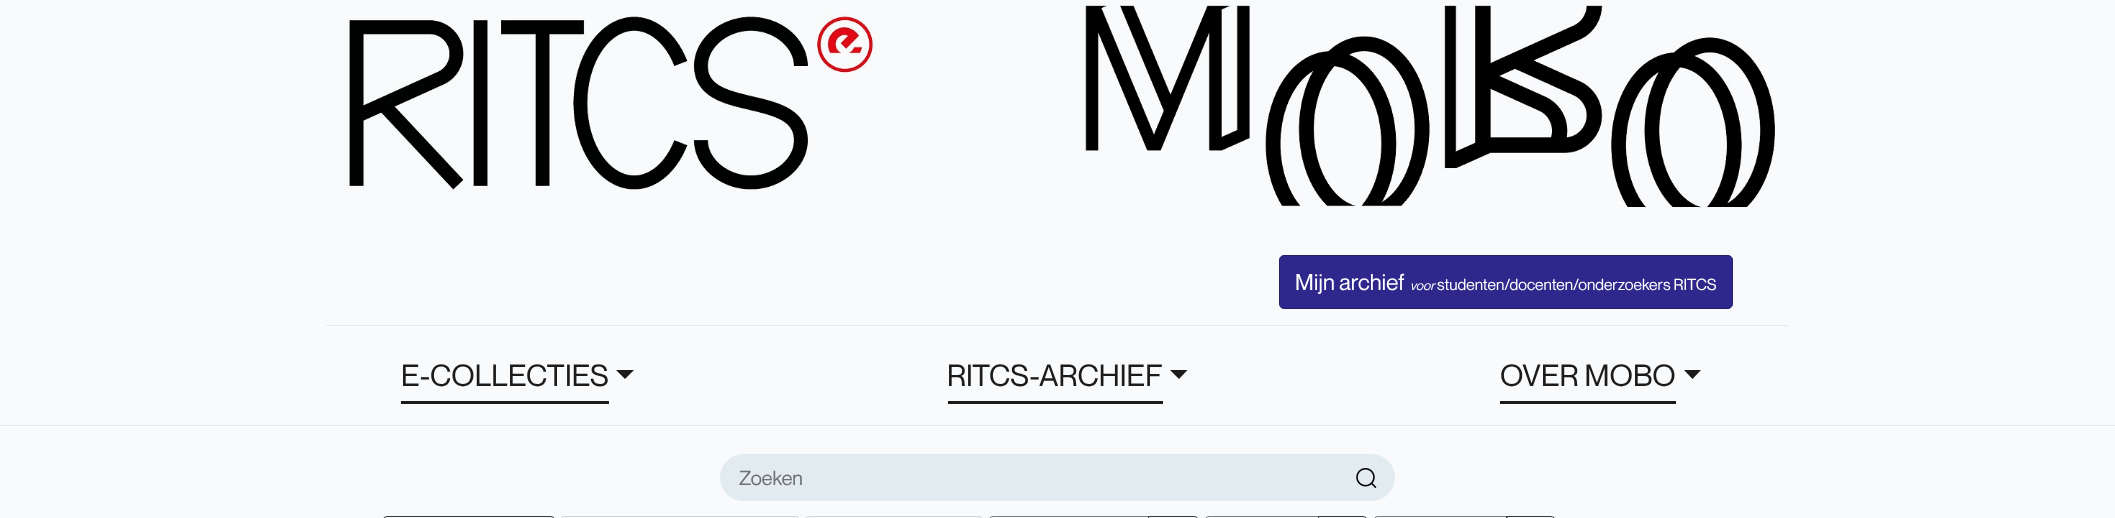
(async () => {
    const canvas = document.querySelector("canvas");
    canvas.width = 2115;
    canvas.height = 518;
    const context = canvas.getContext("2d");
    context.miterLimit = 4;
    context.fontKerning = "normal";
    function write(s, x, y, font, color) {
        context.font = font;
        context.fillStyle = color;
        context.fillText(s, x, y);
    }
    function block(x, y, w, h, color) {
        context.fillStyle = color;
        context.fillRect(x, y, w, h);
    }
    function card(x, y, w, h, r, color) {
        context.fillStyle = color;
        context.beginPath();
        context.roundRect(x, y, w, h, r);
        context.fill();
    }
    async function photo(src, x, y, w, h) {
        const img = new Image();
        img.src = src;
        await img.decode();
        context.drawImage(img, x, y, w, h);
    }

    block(0, 0, 2115, 518, "rgb(248, 250, 252)");
    await photo("media/1.png", 349, 5, 1427, 205);
    block(326, 325, 1463, 1, "rgb(226, 235, 239)");
    context.fillStyle = "rgb(46, 40, 140)";
    context.beginPath();
    context.roundRect(1279.5, 255.5, 453, 53, 4.5);
    context.fill();
    context.strokeStyle = "rgb(36, 32, 110)";
    context.stroke();
    write("Mijn archief", 1295, 290, "22.5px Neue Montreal", "rgb(255, 255, 255)");
    write("voor", 1410, 290, "italic 13px Neue Montreal", "rgb(255, 255, 255)");
    write("studenten/docenten/onderzoekers RITCS", 1437, 290, "15.75px Neue Montreal", "rgb(255, 255, 255)");
    write("E-COLLECTIES", 401, 386, "30px Neue Montreal", "rgb(28, 27, 27)");
    block(401, 401, 208, 3, "rgb(28, 27, 27)");
    context.beginPath();
    context.moveTo(616, 370);
    context.lineTo(634, 370);
    context.lineTo(625, 379);
    context.closePath();
    context.fill();
    write("RITCS-ARCHIEF", 947, 386, "30px Neue Montreal", "rgb(28, 27, 27)");
    block(948, 401, 215, 3, "rgb(28, 27, 27)");
    context.beginPath();
    context.moveTo(1170, 370);
    context.lineTo(1187.5, 370);
    context.lineTo(1179, 379);
    context.closePath();
    context.fill();
    write("OVER MOBO", 1500, 386, "30px Neue Montreal", "rgb(28, 27, 27)");
    block(1500, 401, 176, 3, "rgb(28, 27, 27)");
    context.beginPath();
    context.moveTo(1684, 370);
    context.lineTo(1701, 370);
    context.lineTo(1692.5, 379);
    context.closePath();
    context.fill();
    block(0, 425, 2115, 1, "rgb(226, 235, 239)");
    card(720, 454, 675, 47, 23.5, "rgb(226, 235, 239)");
    write("Zoeken", 739, 485, "20px Neue Montreal", "rgb(110, 111, 112)");
    await photo("media/2.png", 1356, 468, 21, 20);
    context.beginPath();
    context.roundRect(383.5, 516.5, 171, 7, 4.5);
    context.strokeStyle = "rgb(52, 58, 64)";
    context.stroke();
    context.beginPath();
    context.roundRect(560.5, 516.5, 239, 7, 4.5);
    context.strokeStyle = "rgb(206, 212, 218)";
    context.stroke();
    context.beginPath();
    context.roundRect(805.5, 516.5, 177, 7, 4.5);
    context.stroke();
    context.beginPath();
    context.moveTo(993, 516.5);
    context.lineTo(1148.5, 516.5);
    context.lineTo(1148.5, 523.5);
    context.lineTo(993, 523.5);
    context.bezierCurveTo(990.5, 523.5, 988.5, 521.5, 988.5, 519);
    context.lineTo(988.5, 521);
    context.bezierCurveTo(988.5, 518.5, 990.5, 516.5, 993, 516.5);
    context.closePath();
    context.strokeStyle = "rgb(121, 125, 130)";
    context.stroke();
    context.beginPath();
    context.moveTo(1148.5, 516.5);
    context.lineTo(1194, 516.5);
    context.bezierCurveTo(1196.5, 516.5, 1198.5, 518.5, 1198.5, 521);
    context.lineTo(1198.5, 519);
    context.bezierCurveTo(1198.5, 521.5, 1196.5, 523.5, 1194, 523.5);
    context.lineTo(1148.5, 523.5);
    context.closePath();
    context.strokeStyle = "rgb(52, 58, 64)";
    context.stroke();
    context.beginPath();
    context.moveTo(1209, 516.5);
    context.lineTo(1318.5, 516.5);
    context.lineTo(1318.5, 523.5);
    context.lineTo(1209, 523.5);
    context.bezierCurveTo(1206.5, 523.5, 1204.5, 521.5, 1204.5, 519);
    context.lineTo(1204.5, 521);
    context.bezierCurveTo(1204.5, 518.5, 1206.5, 516.5, 1209, 516.5);
    context.closePath();
    context.strokeStyle = "rgb(121, 125, 130)";
    context.stroke();
    context.beginPath();
    context.moveTo(1318.5, 516.5);
    context.lineTo(1363, 516.5);
    context.bezierCurveTo(1365.5, 516.5, 1367.5, 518.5, 1367.5, 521);
    context.lineTo(1367.5, 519);
    context.bezierCurveTo(1367.5, 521.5, 1365.5, 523.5, 1363, 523.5);
    context.lineTo(1318.5, 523.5);
    context.closePath();
    context.strokeStyle = "rgb(52, 58, 64)";
    context.stroke();
    context.beginPath();
    context.moveTo(1378, 516.5);
    context.lineTo(1507.5, 516.5);
    context.lineTo(1507.5, 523.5);
    context.lineTo(1378, 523.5);
    context.bezierCurveTo(1375.5, 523.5, 1373.5, 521.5, 1373.5, 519);
    context.lineTo(1373.5, 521);
    context.bezierCurveTo(1373.5, 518.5, 1375.5, 516.5, 1378, 516.5);
    context.closePath();
    context.strokeStyle = "rgb(121, 125, 130)";
    context.stroke();
    context.beginPath();
    context.moveTo(1506.5, 516.5);
    context.lineTo(1551, 516.5);
    context.bezierCurveTo(1553.5, 516.5, 1555.5, 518.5, 1555.5, 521);
    context.lineTo(1555.5, 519);
    context.bezierCurveTo(1555.5, 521.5, 1553.5, 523.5, 1551, 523.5);
    context.lineTo(1506.5, 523.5);
    context.closePath();
    context.strokeStyle = "rgb(52, 58, 64)";
    context.stroke();
})();
